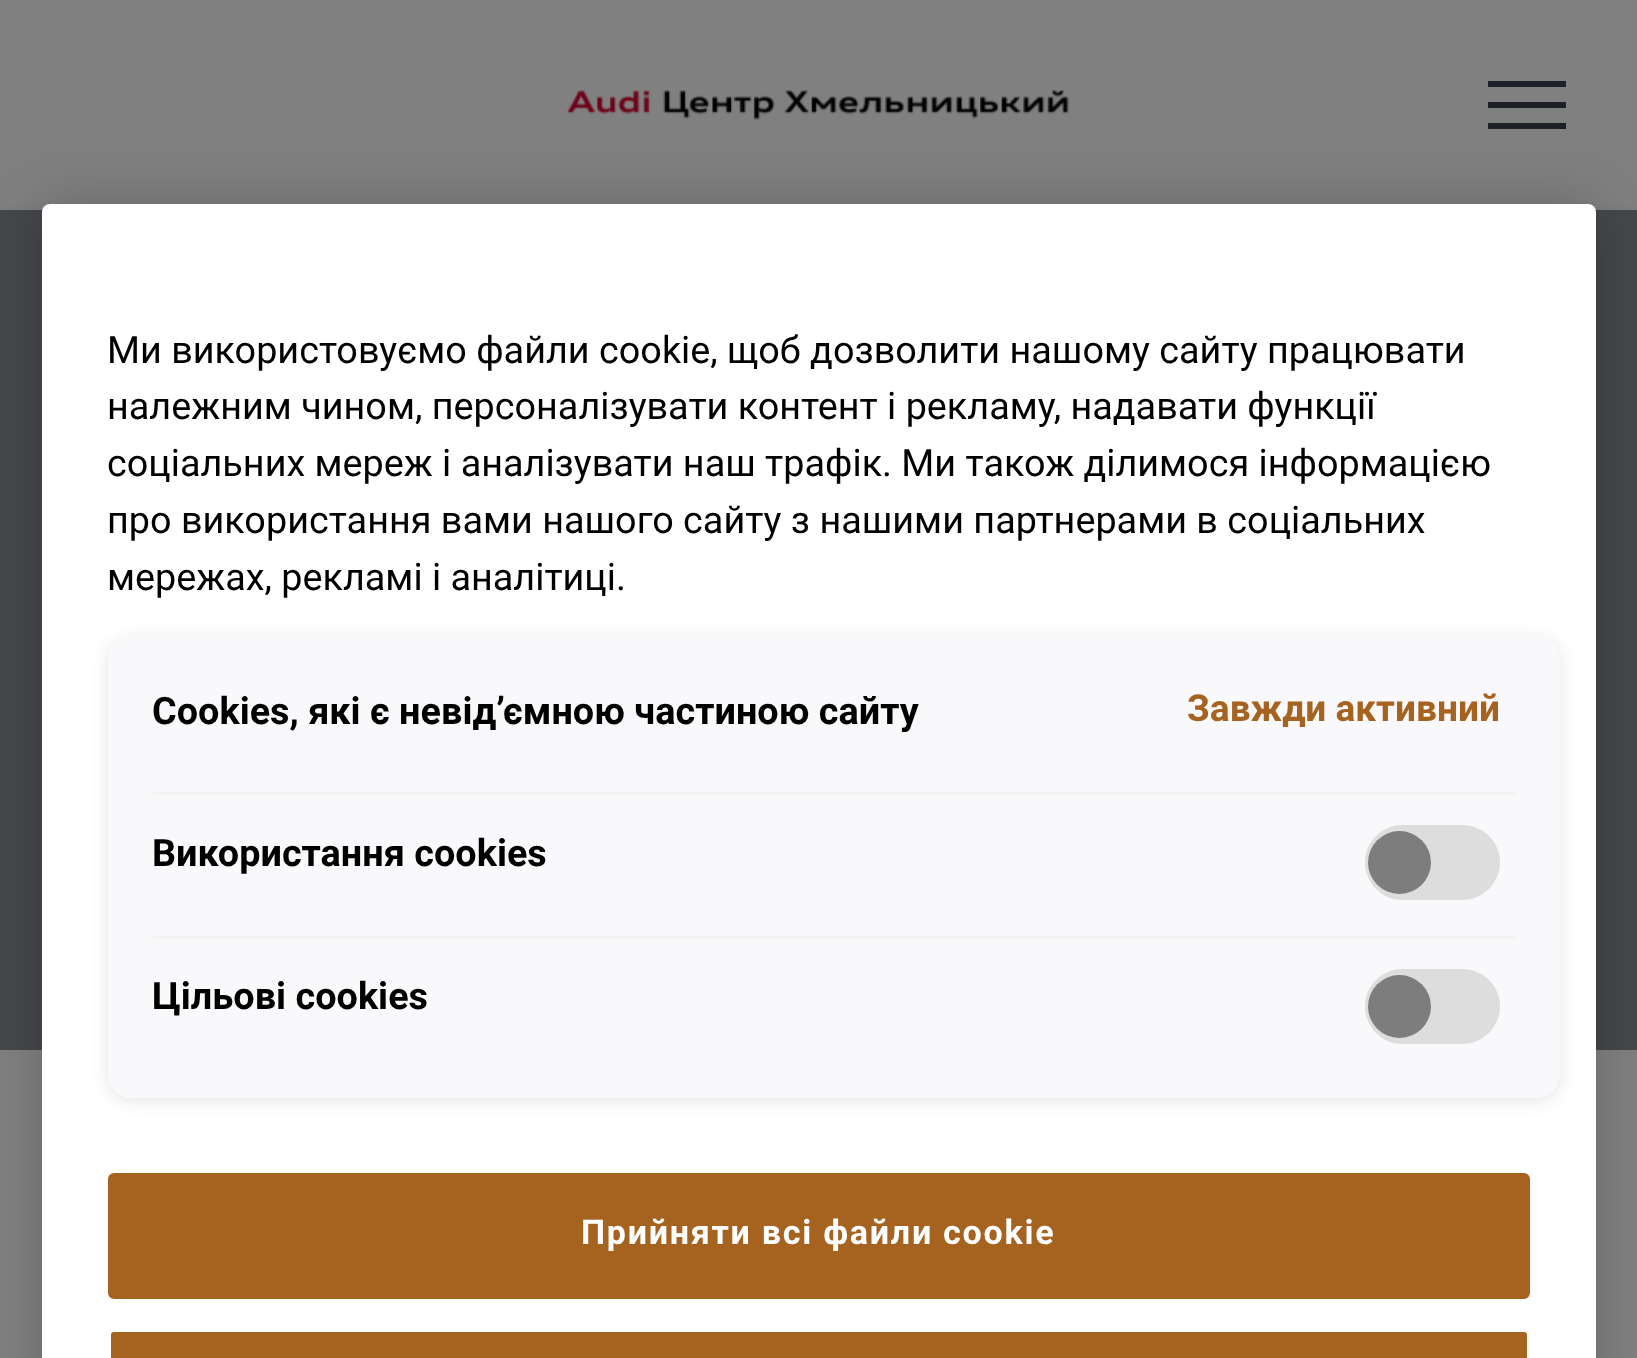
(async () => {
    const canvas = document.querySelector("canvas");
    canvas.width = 1637;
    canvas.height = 1358;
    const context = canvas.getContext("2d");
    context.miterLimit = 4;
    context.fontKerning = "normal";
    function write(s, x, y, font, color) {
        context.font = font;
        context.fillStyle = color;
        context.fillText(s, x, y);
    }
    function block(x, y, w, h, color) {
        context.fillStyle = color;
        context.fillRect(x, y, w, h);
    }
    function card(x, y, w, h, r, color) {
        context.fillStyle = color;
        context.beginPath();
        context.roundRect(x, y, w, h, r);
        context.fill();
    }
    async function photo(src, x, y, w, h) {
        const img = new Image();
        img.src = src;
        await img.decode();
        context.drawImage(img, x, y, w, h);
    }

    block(0, 0, 1637, 1358, "rgb(128, 128, 128)");
    block(0, 207, 1637, 3, "rgb(124, 125, 125)");
    await photo("media/1.png", 566, 90, 504, 31);
    context.fillStyle = "rgb(29, 33, 39)";
    context.beginPath();
    context.moveTo(1566, 123);
    context.lineTo(1566, 129);
    context.lineTo(1488, 129);
    context.lineTo(1488, 123);
    context.closePath();
    context.moveTo(1566, 102);
    context.lineTo(1566, 108);
    context.lineTo(1488, 108);
    context.lineTo(1488, 102);
    context.closePath();
    context.moveTo(1566, 81);
    context.lineTo(1566, 87);
    context.lineTo(1488, 87);
    context.lineTo(1488, 81);
    context.closePath();
    context.fill("evenodd");
    block(0, 210, 1637, 840, "rgb(69, 71, 75)");
    context.fillStyle = "rgba(0, 0, 0, 0.2)";
    context.filter = "blur(27px)";
    context.beginPath();
    context.roundRect(42, 204, 1554, 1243, 8);
    context.fill();
    context.filter = "none";
    card(42, 204, 1554, 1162, 8, "rgb(255, 255, 255)");
    write("Ми використовуємо файли cookie, щоб дозволити нашому сайту працювати", 107, 363, "37.8px Roboto", "rgb(0, 0, 0)");
    write("належним чином, персоналізувати контент і рекламу, надавати функції", 107, 419, "37.8px Roboto", "rgb(0, 0, 0)");
    write("соціальних мереж і аналізувати наш трафік. Ми також ділимося інформацією", 107, 476, "37.8px Roboto", "rgb(0, 0, 0)");
    write("про використання вами нашого сайту з нашими партнерами в соціальних", 107, 533, "37.8px Roboto", "rgb(0, 0, 0)");
    write("мережах, рекламі і аналітиці.", 107, 590, "37.8px Roboto", "rgb(0, 0, 0)");
    context.fillStyle = "rgba(0, 0, 0, 0.1)";
    context.filter = "blur(9px)";
    context.beginPath();
    context.roundRect(108, 639, 1452, 462, 24);
    context.fill();
    context.filter = "none";
    card(108, 636, 1452, 462, 24, "rgb(249, 249, 252)");
    block(153, 792, 1362, 3, "rgb(244, 244, 244)");
    write("Сookies, які є невід’ємною частиною сайту", 152, 724, "bold 37.8px Roboto", "rgb(0, 0, 0)");
    write("Завжди активний", 1187, 721, "bold 37px Roboto", "rgb(166, 98, 31)");
    block(153, 936, 1362, 3, "rgb(244, 244, 244)");
    write("Використання cookies", 152, 866, "bold 37.8px Roboto", "rgb(0, 0, 0)");
    card(1365, 825, 135, 75, 37.5, "rgb(242, 241, 241)");
    context.fillStyle = "rgb(221, 221, 221)";
    context.beginPath();
    context.moveTo(1402, 825);
    context.lineTo(1462, 825);
    context.bezierCurveTo(1483, 825, 1500, 842, 1500, 862);
    context.bezierCurveTo(1500, 883, 1483, 900, 1462, 900);
    context.lineTo(1402, 900);
    context.bezierCurveTo(1382, 900, 1365, 883, 1365, 862);
    context.bezierCurveTo(1365, 842, 1382, 825, 1402, 825);
    context.closePath();
    context.fill();
    context.fillStyle = "rgb(125, 125, 125)";
    context.beginPath();
    context.arc(1399.5, 862.5, 31.5, 0, Math.PI * 2);
    context.fill();
    write("Цільові сookies", 152, 1009, "bold 37.8px Roboto", "rgb(0, 0, 0)");
    card(1365, 969, 135, 75, 37.5, "rgb(242, 241, 241)");
    context.fillStyle = "rgb(221, 221, 221)";
    context.beginPath();
    context.moveTo(1402, 969);
    context.lineTo(1462, 969);
    context.bezierCurveTo(1483, 969, 1500, 986, 1500, 1006);
    context.bezierCurveTo(1500, 1027, 1483, 1044, 1462, 1044);
    context.lineTo(1402, 1044);
    context.bezierCurveTo(1382, 1044, 1365, 1027, 1365, 1006);
    context.bezierCurveTo(1365, 986, 1382, 969, 1402, 969);
    context.closePath();
    context.fill();
    context.fillStyle = "rgb(125, 125, 125)";
    context.beginPath();
    context.arc(1399.5, 1006.5, 31.5, 0, Math.PI * 2);
    context.fill();
    context.fillStyle = "rgb(166, 98, 31)";
    context.beginPath();
    context.roundRect(109.5, 1174.5, 1419, 123, 4.5);
    context.fill();
    context.strokeStyle = "rgb(166, 98, 31)";
    context.lineWidth = 3;
    context.stroke();
    context.letterSpacing = "1.7px";
    write("Прийняти всі файли сookie", 581, 1244, "bold 34.1px Roboto", "rgb(255, 255, 255)");
    context.fillStyle = "rgb(166, 98, 31)";
    context.beginPath();
    context.roundRect(109.5, 1330.5, 1419, 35, 4.5);
    context.fill();
    context.strokeStyle = "rgb(255, 255, 255)";
    context.stroke();
})();
